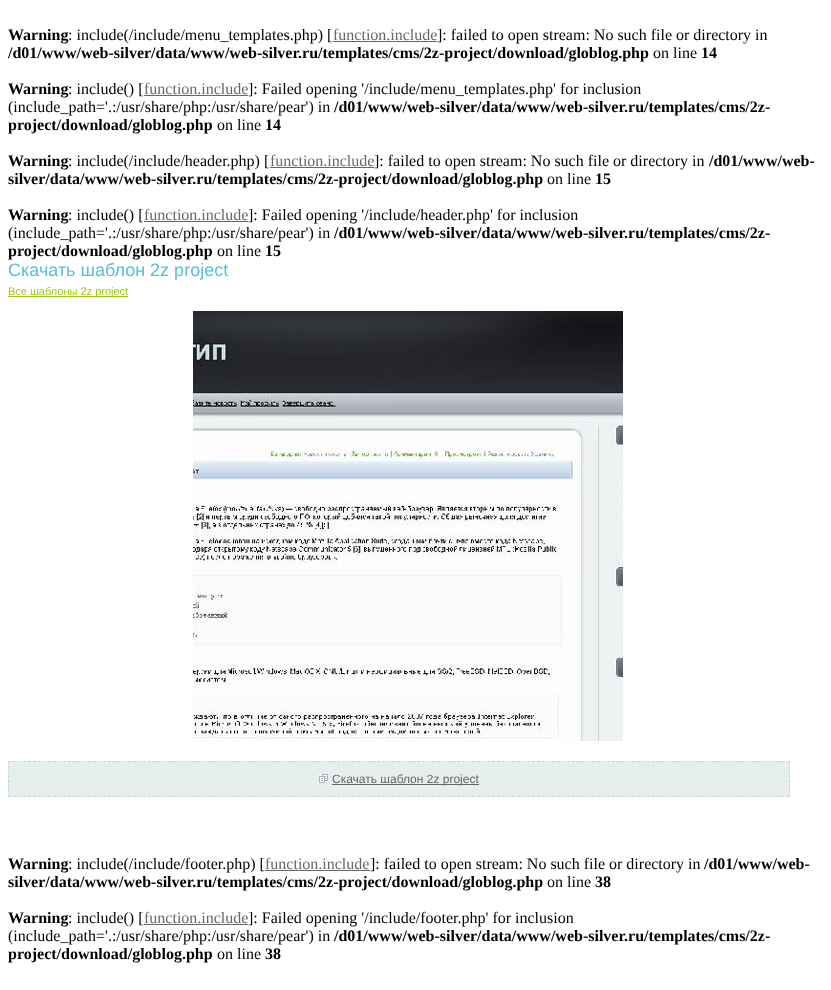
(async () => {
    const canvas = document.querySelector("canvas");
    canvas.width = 831;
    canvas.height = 990;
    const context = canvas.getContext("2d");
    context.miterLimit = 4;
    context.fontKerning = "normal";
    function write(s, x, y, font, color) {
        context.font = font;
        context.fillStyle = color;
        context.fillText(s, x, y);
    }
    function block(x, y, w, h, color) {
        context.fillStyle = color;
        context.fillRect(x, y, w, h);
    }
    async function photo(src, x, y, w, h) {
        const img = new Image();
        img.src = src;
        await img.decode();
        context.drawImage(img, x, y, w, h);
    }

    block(0, 0, 831, 990, "rgb(255, 255, 255)");
    write("Warning", 8, 40, "bold 16px Liberation Serif", "rgb(0, 0, 0)");
    write(": include(/include/menu_templates.php) [", 68, 40, "16px Liberation Serif", "rgb(0, 0, 0)");
    write("function.include", 333, 40, "16px Liberation Serif", "rgb(102, 102, 102)");
    block(333, 41, 104, 1, "rgb(102, 102, 102)");
    write("]: failed to open stream: No such file or directory in", 437, 40, "16px Liberation Serif", "rgb(0, 0, 0)");
    write("/d01/www/web-silver/data/www/web-silver.ru/templates/cms/2z-project/download/globlog.php", 8, 58, "bold 16px Liberation Serif", "rgb(0, 0, 0)");
    write("on line", 653, 58, "16px Liberation Serif", "rgb(0, 0, 0)");
    write("14", 701, 58, "bold 16px Liberation Serif", "rgb(0, 0, 0)");
    write("Warning", 8, 94, "bold 16px Liberation Serif", "rgb(0, 0, 0)");
    write(": include() [", 68, 94, "16px Liberation Serif", "rgb(0, 0, 0)");
    write("function.include", 144, 94, "16px Liberation Serif", "rgb(102, 102, 102)");
    block(144, 95, 104, 1, "rgb(102, 102, 102)");
    write("]: Failed opening '/include/menu_templates.php' for inclusion", 248, 94, "16px Liberation Serif", "rgb(0, 0, 0)");
    write("(include_path='.:/usr/share/php:/usr/share/pear') in", 8, 112, "16px Liberation Serif", "rgb(0, 0, 0)");
    write("/d01/www/web-silver/data/www/web-silver.ru/templates/cms/2z-", 334, 112, "bold 16px Liberation Serif", "rgb(0, 0, 0)");
    write("project/download/globlog.php", 8, 130, "bold 16px Liberation Serif", "rgb(0, 0, 0)");
    write("on line", 217, 130, "16px Liberation Serif", "rgb(0, 0, 0)");
    write("14", 265, 130, "bold 16px Liberation Serif", "rgb(0, 0, 0)");
    write("Warning", 8, 166, "bold 16px Liberation Serif", "rgb(0, 0, 0)");
    write(": include(/include/header.php) [", 68, 166, "16px Liberation Serif", "rgb(0, 0, 0)");
    write("function.include", 270, 166, "16px Liberation Serif", "rgb(102, 102, 102)");
    block(270, 167, 104, 1, "rgb(102, 102, 102)");
    write("]: failed to open stream: No such file or directory in", 374, 166, "16px Liberation Serif", "rgb(0, 0, 0)");
    write("/d01/www/web-", 709, 166, "bold 16px Liberation Serif", "rgb(0, 0, 0)");
    write("silver/data/www/web-silver.ru/templates/cms/2z-project/download/globlog.php", 8, 184, "bold 16px Liberation Serif", "rgb(0, 0, 0)");
    write("on line", 547, 184, "16px Liberation Serif", "rgb(0, 0, 0)");
    write("15", 595, 184, "bold 16px Liberation Serif", "rgb(0, 0, 0)");
    write("Warning", 8, 220, "bold 16px Liberation Serif", "rgb(0, 0, 0)");
    write(": include() [", 68, 220, "16px Liberation Serif", "rgb(0, 0, 0)");
    write("function.include", 144, 220, "16px Liberation Serif", "rgb(102, 102, 102)");
    block(144, 221, 104, 1, "rgb(102, 102, 102)");
    write("]: Failed opening '/include/header.php' for inclusion", 248, 220, "16px Liberation Serif", "rgb(0, 0, 0)");
    write("(include_path='.:/usr/share/php:/usr/share/pear') in", 8, 238, "16px Liberation Serif", "rgb(0, 0, 0)");
    write("/d01/www/web-silver/data/www/web-silver.ru/templates/cms/2z-", 334, 238, "bold 16px Liberation Serif", "rgb(0, 0, 0)");
    write("project/download/globlog.php", 8, 256, "bold 16px Liberation Serif", "rgb(0, 0, 0)");
    write("on line", 217, 256, "16px Liberation Serif", "rgb(0, 0, 0)");
    write("15", 265, 256, "bold 16px Liberation Serif", "rgb(0, 0, 0)");
    write("Скачать шаблон 2z project", 8, 276, "18px Liberation Sans", "rgb(88, 191, 215)");
    block(8, 296, 120, 1, "rgb(159, 198, 16)");
    write("Все шаблоны 2z project", 8, 295, "11px Liberation Sans", "rgb(159, 198, 16)");
    await photo("media/1.png", 193, 311, 430, 430);
    block(8, 761, 782, 36, "rgb(230, 239, 238)");
    context.beginPath();
    context.moveTo(8, 761.5);
    context.lineTo(790, 761.5);
    context.strokeStyle = "rgb(210, 210, 210)";
    context.setLineDash([3, 1.99]);
    context.stroke();
    context.beginPath();
    context.moveTo(789.5, 761);
    context.lineTo(789.5, 797);
    context.setLineDash([3, 1.71]);
    context.stroke();
    context.beginPath();
    context.moveTo(8, 796.5);
    context.lineTo(790, 796.5);
    context.setLineDash([3, 1.99]);
    context.stroke();
    context.beginPath();
    context.moveTo(8.5, 761);
    context.lineTo(8.5, 797);
    context.setLineDash([3, 1.71]);
    context.stroke();
    await photo("media/2.png", 319, 774, 9, 9);
    block(332, 784, 147, 1, "rgb(102, 102, 102)");
    write("Скачать шаблон 2z project", 332, 783, "12px Liberation Sans", "rgb(102, 102, 102)");
    write("Warning", 8, 869, "bold 16px Liberation Serif", "rgb(0, 0, 0)");
    write(": include(/include/footer.php) [", 68, 869, "16px Liberation Serif", "rgb(0, 0, 0)");
    write("function.include", 265, 869, "16px Liberation Serif", "rgb(102, 102, 102)");
    block(265, 870, 105, 1, "rgb(102, 102, 102)");
    write("]: failed to open stream: No such file or directory in", 370, 869, "16px Liberation Serif", "rgb(0, 0, 0)");
    write("/d01/www/web-", 704, 869, "bold 16px Liberation Serif", "rgb(0, 0, 0)");
    write("silver/data/www/web-silver.ru/templates/cms/2z-project/download/globlog.php", 8, 887, "bold 16px Liberation Serif", "rgb(0, 0, 0)");
    write("on line", 547, 887, "16px Liberation Serif", "rgb(0, 0, 0)");
    write("38", 595, 887, "bold 16px Liberation Serif", "rgb(0, 0, 0)");
    write("Warning", 8, 923, "bold 16px Liberation Serif", "rgb(0, 0, 0)");
    write(": include() [", 68, 923, "16px Liberation Serif", "rgb(0, 0, 0)");
    write("function.include", 144, 923, "16px Liberation Serif", "rgb(102, 102, 102)");
    block(144, 924, 104, 1, "rgb(102, 102, 102)");
    write("]: Failed opening '/include/footer.php' for inclusion", 248, 923, "16px Liberation Serif", "rgb(0, 0, 0)");
    write("(include_path='.:/usr/share/php:/usr/share/pear') in", 8, 941, "16px Liberation Serif", "rgb(0, 0, 0)");
    write("/d01/www/web-silver/data/www/web-silver.ru/templates/cms/2z-", 334, 941, "bold 16px Liberation Serif", "rgb(0, 0, 0)");
    write("project/download/globlog.php", 8, 959, "bold 16px Liberation Serif", "rgb(0, 0, 0)");
    write("on line", 217, 959, "16px Liberation Serif", "rgb(0, 0, 0)");
    write("38", 265, 959, "bold 16px Liberation Serif", "rgb(0, 0, 0)");
})();
